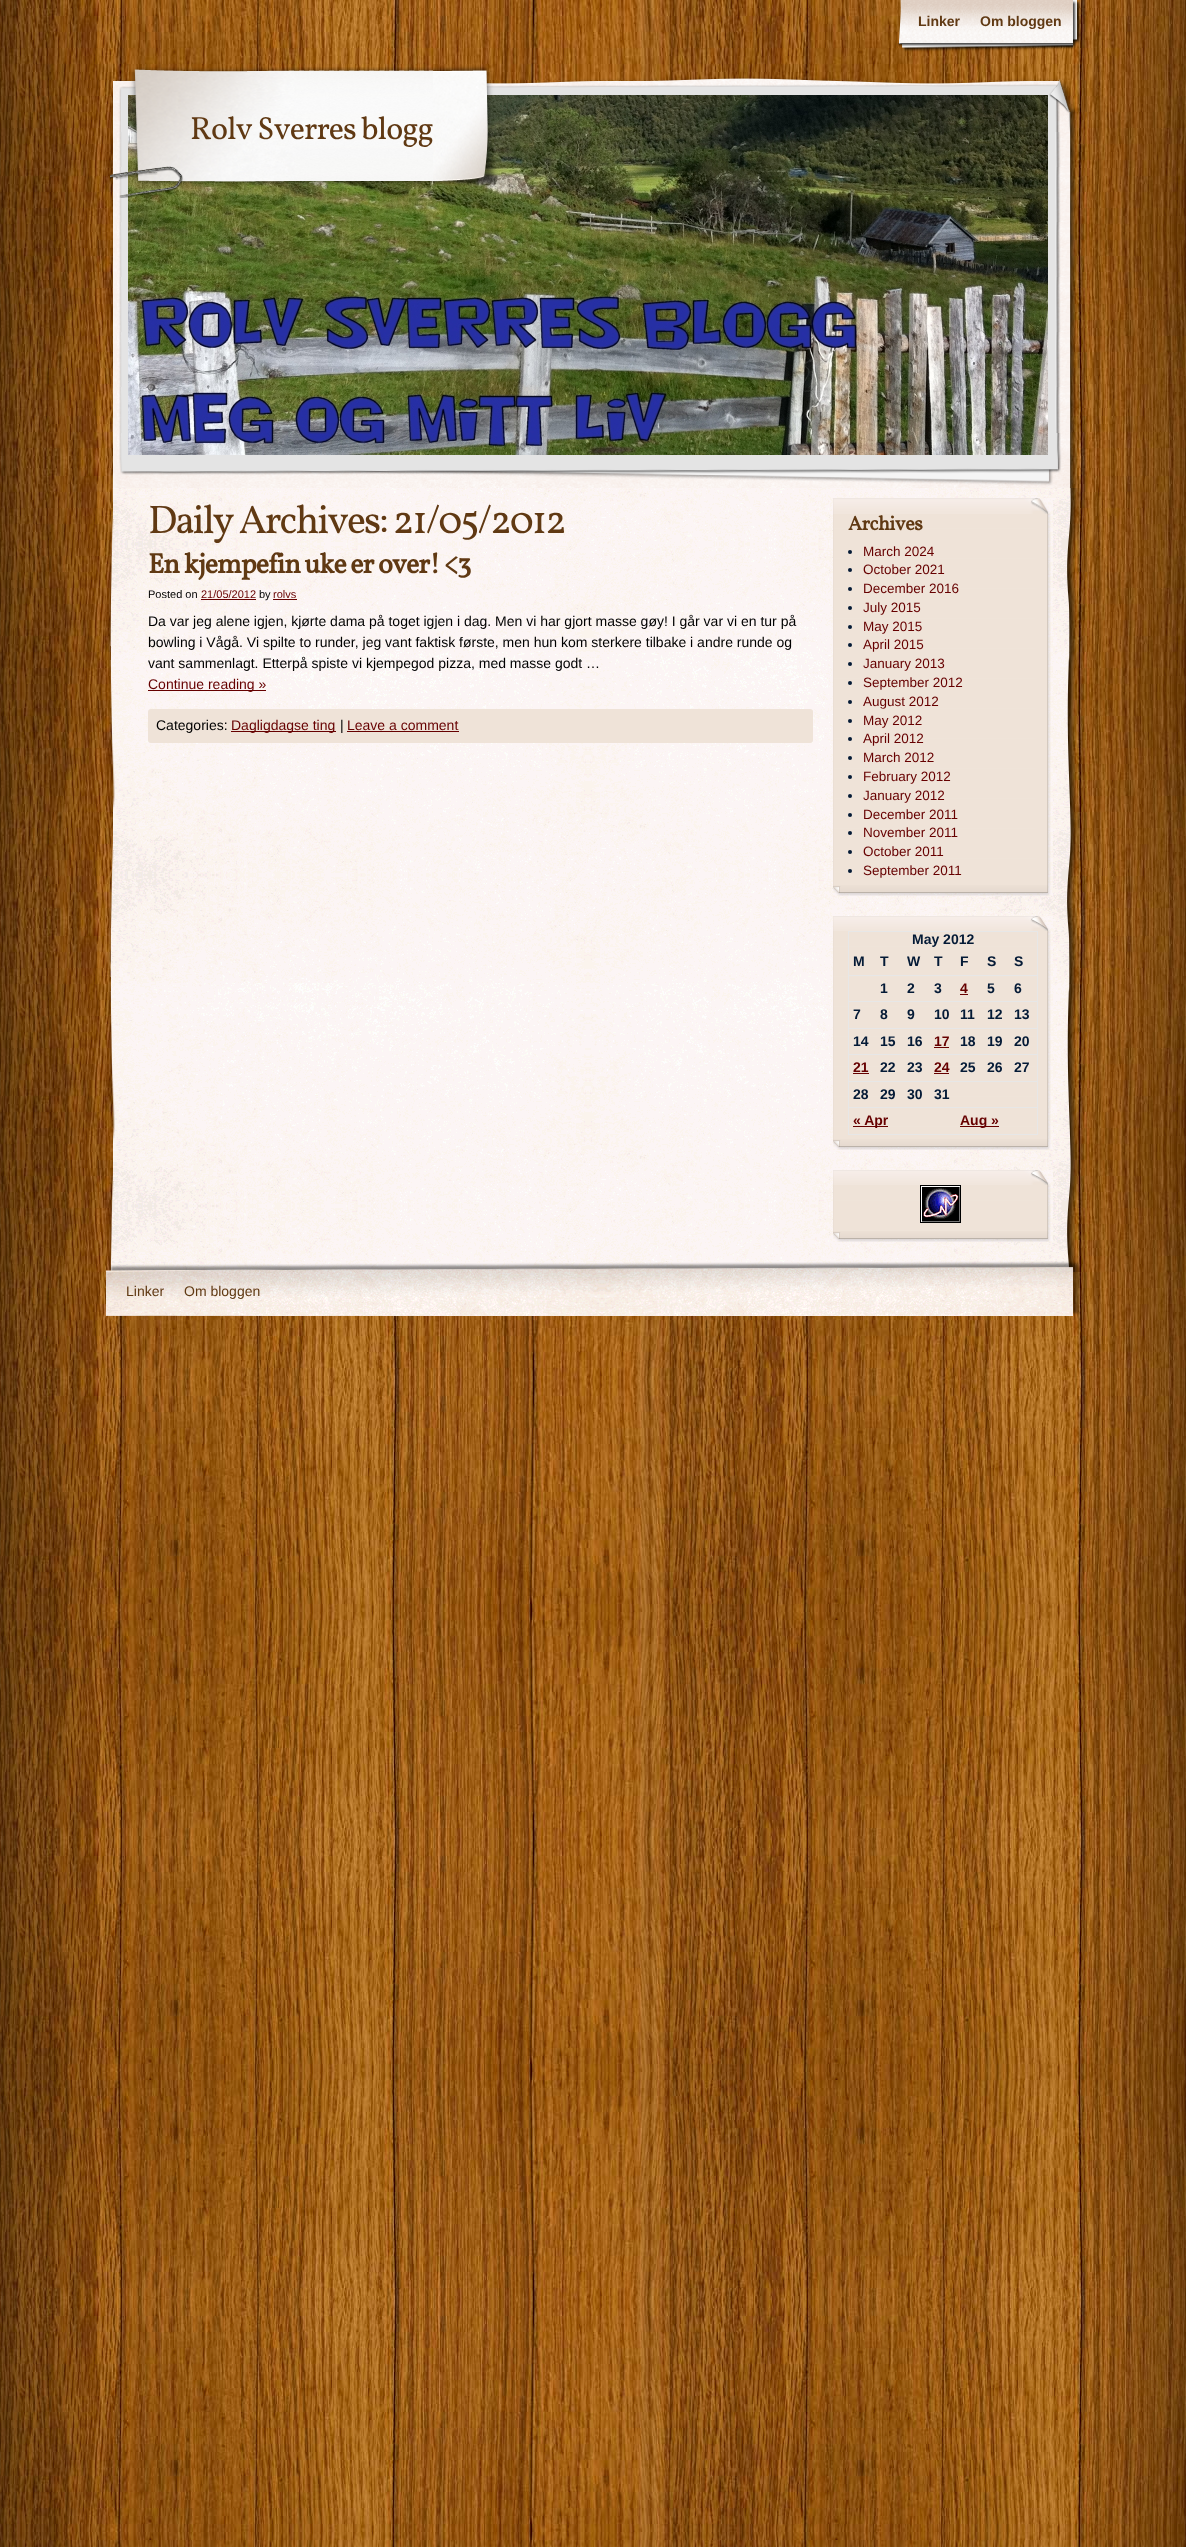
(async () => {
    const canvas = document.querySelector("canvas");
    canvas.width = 1186;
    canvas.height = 2547;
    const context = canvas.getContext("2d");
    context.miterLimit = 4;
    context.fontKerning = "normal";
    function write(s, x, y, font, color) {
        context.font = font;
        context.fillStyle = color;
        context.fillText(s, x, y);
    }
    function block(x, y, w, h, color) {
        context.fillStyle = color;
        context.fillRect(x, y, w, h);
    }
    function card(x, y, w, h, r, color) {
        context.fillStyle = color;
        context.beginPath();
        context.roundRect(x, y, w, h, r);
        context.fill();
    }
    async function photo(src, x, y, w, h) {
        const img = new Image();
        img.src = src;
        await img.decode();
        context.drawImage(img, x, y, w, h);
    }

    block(0, 0, 1186, 2547, "rgb(255, 255, 255)");
    await photo("media/1.png", 0, 0, 1186, 2547);
    await photo("media/2.png", 0, 0, 1186, 2547);
    await photo("media/3.png", 899, 0, 9, 44);
    await photo("media/4.png", 1072, 0, 9, 48);
    await photo("media/5.png", 908, 0, 164, 48);
    write("Linker", 918, 26, "bold 14px Liberation Sans", "rgb(96, 57, 19)");
    write("Om bloggen", 980, 26, "bold 14px Liberation Sans", "rgb(96, 57, 19)");
    await photo("media/6.png", 897, 43, 176, 9);
    await photo("media/7.png", 110, 112, 969, 376);
    await photo("media/8.png", 111, 77, 967, 55);
    await photo("media/9.png", 116, 433, 954, 55);
    await photo("media/10.png", 128, 95, 920, 360);
    await photo("media/11.png", 433, 65, 67, 122);
    await photo("media/12.png", 110, 67, 323, 131);
    context.letterSpacing = "-1px";
    write("Rolv Sverres blogg", 190, 139, "32px Vollkorn", "rgb(96, 57, 19)");
    await photo("media/13.png", 108, 488, 972, 784);
    context.letterSpacing = "-2px";
    write("Daily Archives: 21/05/2012", 148, 533, "40px Vollkorn", "rgb(96, 57, 19)");
    context.letterSpacing = "-1px";
    write("En kjempefin uke er over! <3", 148, 573, "bold 28px Vollkorn", "rgb(96, 57, 19)");
    context.letterSpacing = "0px";
    write("Posted on", 148, 598, "11px Liberation Sans", "rgb(0, 0, 0)");
    write("21/05/2012", 201, 598, "11px Liberation Sans", "rgb(102, 0, 0)");
    block(201, 599, 55, 1, "rgb(102, 0, 0)");
    write("by", 259, 598, "11px Liberation Sans", "rgb(0, 0, 0)");
    write("rolvs", 273, 598, "11px Liberation Sans", "rgb(102, 0, 0)");
    block(273, 599, 24, 1, "rgb(102, 0, 0)");
    write("Da var jeg alene igjen, kjørte dama på toget igjen i dag. Men vi har gjort masse gøy! I går var vi en tur på", 148, 626, "14px Liberation Sans", "rgb(0, 0, 0)");
    write("bowling i Vågå. Vi spilte to runder, jeg vant faktisk første, men hun kom sterkere tilbake i andre runde og", 148, 647, "14px Liberation Sans", "rgb(0, 0, 0)");
    write("vant sammenlagt. Etterpå spiste vi kjempegod pizza, med masse godt …", 148, 668, "14px Liberation Sans", "rgb(0, 0, 0)");
    block(148, 690, 118, 1, "rgb(102, 0, 0)");
    write("Continue reading »", 148, 689, "14px Liberation Sans", "rgb(102, 0, 0)");
    card(148, 709, 665, 34, 3, "rgb(239, 227, 216)");
    write("Categories:", 156, 730, "14px Liberation Sans", "rgb(0, 0, 0)");
    block(231, 731, 105, 1, "rgb(102, 0, 0)");
    write("Dagligdagse ting", 231, 730, "14px Liberation Sans", "rgb(102, 0, 0)");
    write("|", 340, 730, "14px Liberation Sans", "rgb(0, 0, 0)");
    write("Leave a comment", 347, 730, "14px Liberation Sans", "rgb(102, 0, 0)");
    block(347, 731, 112, 1, "rgb(102, 0, 0)");
    await photo("media/14.png", 833, 498, 220, 398);
    context.letterSpacing = "-0.5px";
    write("Archives", 848, 530, "bold 20px Vollkorn", "rgb(96, 57, 19)");
    context.fillStyle = "rgb(4, 26, 54)";
    context.beginPath();
    context.arc(850, 552, 2, 0, Math.PI * 2);
    context.fill();
    context.letterSpacing = "0px";
    write("March 2024", 863, 556, "13.5px Liberation Sans", "rgb(102, 0, 0)");
    context.fillStyle = "rgb(4, 26, 54)";
    context.beginPath();
    context.arc(850, 570, 2, 0, Math.PI * 2);
    context.fill();
    write("October 2021", 863, 574, "13.5px Liberation Sans", "rgb(102, 0, 0)");
    context.fillStyle = "rgb(4, 26, 54)";
    context.beginPath();
    context.arc(850, 589, 2, 0, Math.PI * 2);
    context.fill();
    write("December 2016", 863, 593, "13.5px Liberation Sans", "rgb(102, 0, 0)");
    context.fillStyle = "rgb(4, 26, 54)";
    context.beginPath();
    context.arc(850, 608, 2, 0, Math.PI * 2);
    context.fill();
    write("July 2015", 863, 612, "13.5px Liberation Sans", "rgb(102, 0, 0)");
    context.fillStyle = "rgb(4, 26, 54)";
    context.beginPath();
    context.arc(850, 627, 2, 0, Math.PI * 2);
    context.fill();
    write("May 2015", 863, 631, "13.5px Liberation Sans", "rgb(102, 0, 0)");
    context.fillStyle = "rgb(4, 26, 54)";
    context.beginPath();
    context.arc(850, 645, 2, 0, Math.PI * 2);
    context.fill();
    write("April 2015", 863, 649, "13.5px Liberation Sans", "rgb(102, 0, 0)");
    context.fillStyle = "rgb(4, 26, 54)";
    context.beginPath();
    context.arc(850, 664, 2, 0, Math.PI * 2);
    context.fill();
    write("January 2013", 863, 668, "13.5px Liberation Sans", "rgb(102, 0, 0)");
    context.fillStyle = "rgb(4, 26, 54)";
    context.beginPath();
    context.arc(850, 683, 2, 0, Math.PI * 2);
    context.fill();
    write("September 2012", 863, 687, "13.5px Liberation Sans", "rgb(102, 0, 0)");
    context.fillStyle = "rgb(4, 26, 54)";
    context.beginPath();
    context.arc(850, 702, 2, 0, Math.PI * 2);
    context.fill();
    write("August 2012", 863, 706, "13.5px Liberation Sans", "rgb(102, 0, 0)");
    context.fillStyle = "rgb(4, 26, 54)";
    context.beginPath();
    context.arc(850, 721, 2, 0, Math.PI * 2);
    context.fill();
    write("May 2012", 863, 725, "13.5px Liberation Sans", "rgb(102, 0, 0)");
    context.fillStyle = "rgb(4, 26, 54)";
    context.beginPath();
    context.arc(850, 739, 2, 0, Math.PI * 2);
    context.fill();
    write("April 2012", 863, 743, "13.5px Liberation Sans", "rgb(102, 0, 0)");
    context.fillStyle = "rgb(4, 26, 54)";
    context.beginPath();
    context.arc(850, 758, 2, 0, Math.PI * 2);
    context.fill();
    write("March 2012", 863, 762, "13.5px Liberation Sans", "rgb(102, 0, 0)");
    context.fillStyle = "rgb(4, 26, 54)";
    context.beginPath();
    context.arc(850, 777, 2, 0, Math.PI * 2);
    context.fill();
    write("February 2012", 863, 781, "13.5px Liberation Sans", "rgb(102, 0, 0)");
    context.fillStyle = "rgb(4, 26, 54)";
    context.beginPath();
    context.arc(850, 796, 2, 0, Math.PI * 2);
    context.fill();
    write("January 2012", 863, 800, "13.5px Liberation Sans", "rgb(102, 0, 0)");
    context.fillStyle = "rgb(4, 26, 54)";
    context.beginPath();
    context.arc(850, 815, 2, 0, Math.PI * 2);
    context.fill();
    write("December 2011", 863, 819, "13.5px Liberation Sans", "rgb(102, 0, 0)");
    context.fillStyle = "rgb(4, 26, 54)";
    context.beginPath();
    context.arc(850, 833, 2, 0, Math.PI * 2);
    context.fill();
    write("November 2011", 863, 837, "13.5px Liberation Sans", "rgb(102, 0, 0)");
    context.fillStyle = "rgb(4, 26, 54)";
    context.beginPath();
    context.arc(850, 852, 2, 0, Math.PI * 2);
    context.fill();
    write("October 2011", 863, 856, "13.5px Liberation Sans", "rgb(102, 0, 0)");
    context.fillStyle = "rgb(4, 26, 54)";
    context.beginPath();
    context.arc(850, 871, 2, 0, Math.PI * 2);
    context.fill();
    write("September 2011", 863, 875, "13.5px Liberation Sans", "rgb(102, 0, 0)");
    await photo("media/15.png", 833, 916, 220, 234);
    block(848, 931, 190, 1, "rgb(231, 231, 231)");
    block(1037, 931, 1, 204, "rgb(231, 231, 231)");
    block(848, 1134, 190, 1, "rgb(231, 231, 231)");
    block(848, 931, 1, 204, "rgb(231, 231, 231)");
    write("May 2012", 912, 944, "bold 14px Liberation Sans", "rgb(4, 26, 54)");
    write("M", 853, 966, "bold 14px Liberation Sans", "rgb(4, 26, 54)");
    write("T", 880, 966, "bold 14px Liberation Sans", "rgb(4, 26, 54)");
    write("W", 907, 966, "bold 14px Liberation Sans", "rgb(4, 26, 54)");
    write("T", 934, 966, "bold 14px Liberation Sans", "rgb(4, 26, 54)");
    write("F", 960, 966, "bold 14px Liberation Sans", "rgb(4, 26, 54)");
    write("S", 987, 966, "bold 14px Liberation Sans", "rgb(4, 26, 54)");
    write("S", 1014, 966, "bold 14px Liberation Sans", "rgb(4, 26, 54)");
    write("1", 880, 993, "bold 14px Liberation Sans", "rgb(4, 26, 54)");
    write("2", 907, 993, "bold 14px Liberation Sans", "rgb(4, 26, 54)");
    write("3", 934, 993, "bold 14px Liberation Sans", "rgb(4, 26, 54)");
    write("4", 960, 993, "bold 14px Liberation Sans", "rgb(102, 0, 0)");
    block(960, 994, 8, 1, "rgb(102, 0, 0)");
    write("5", 987, 993, "bold 14px Liberation Sans", "rgb(4, 26, 54)");
    block(848, 975, 190, 1, "rgb(231, 231, 231)");
    write("6", 1014, 993, "bold 14px Liberation Sans", "rgb(4, 26, 54)");
    write("7", 853, 1019, "bold 14px Liberation Sans", "rgb(4, 26, 54)");
    write("8", 880, 1019, "bold 14px Liberation Sans", "rgb(4, 26, 54)");
    write("9", 907, 1019, "bold 14px Liberation Sans", "rgb(4, 26, 54)");
    write("10", 934, 1019, "bold 14px Liberation Sans", "rgb(4, 26, 54)");
    write("11", 960, 1019, "bold 14px Liberation Sans", "rgb(4, 26, 54)");
    write("12", 987, 1019, "bold 14px Liberation Sans", "rgb(4, 26, 54)");
    block(848, 1001, 190, 1, "rgb(231, 231, 231)");
    write("13", 1014, 1019, "bold 14px Liberation Sans", "rgb(4, 26, 54)");
    write("14", 853, 1046, "bold 14px Liberation Sans", "rgb(4, 26, 54)");
    write("15", 880, 1046, "bold 14px Liberation Sans", "rgb(4, 26, 54)");
    write("16", 907, 1046, "bold 14px Liberation Sans", "rgb(4, 26, 54)");
    write("17", 934, 1046, "bold 14px Liberation Sans", "rgb(102, 0, 0)");
    block(934, 1047, 15, 1, "rgb(102, 0, 0)");
    write("18", 960, 1046, "bold 14px Liberation Sans", "rgb(4, 26, 54)");
    write("19", 987, 1046, "bold 14px Liberation Sans", "rgb(4, 26, 54)");
    block(848, 1028, 190, 1, "rgb(231, 231, 231)");
    write("20", 1014, 1046, "bold 14px Liberation Sans", "rgb(4, 26, 54)");
    write("21", 853, 1072, "bold 14px Liberation Sans", "rgb(102, 0, 0)");
    block(853, 1073, 16, 1, "rgb(102, 0, 0)");
    write("22", 880, 1072, "bold 14px Liberation Sans", "rgb(4, 26, 54)");
    write("23", 907, 1072, "bold 14px Liberation Sans", "rgb(4, 26, 54)");
    write("24", 934, 1072, "bold 14px Liberation Sans", "rgb(102, 0, 0)");
    block(934, 1073, 15, 1, "rgb(102, 0, 0)");
    write("25", 960, 1072, "bold 14px Liberation Sans", "rgb(4, 26, 54)");
    write("26", 987, 1072, "bold 14px Liberation Sans", "rgb(4, 26, 54)");
    block(848, 1054, 190, 1, "rgb(231, 231, 231)");
    write("27", 1014, 1072, "bold 14px Liberation Sans", "rgb(4, 26, 54)");
    block(848, 1081, 190, 1, "rgb(231, 231, 231)");
    write("28", 853, 1099, "bold 14px Liberation Sans", "rgb(4, 26, 54)");
    write("29", 880, 1099, "bold 14px Liberation Sans", "rgb(4, 26, 54)");
    write("30", 907, 1099, "bold 14px Liberation Sans", "rgb(4, 26, 54)");
    write("31", 934, 1099, "bold 14px Liberation Sans", "rgb(4, 26, 54)");
    block(853, 1126, 35, 1, "rgb(102, 0, 0)");
    write("« Apr", 853, 1125, "bold 14px Liberation Sans", "rgb(102, 0, 0)");
    block(848, 1107, 190, 1, "rgb(231, 231, 231)");
    block(960, 1126, 39, 1, "rgb(102, 0, 0)");
    write("Aug »", 960, 1125, "bold 14px Liberation Sans", "rgb(102, 0, 0)");
    await photo("media/16.png", 833, 1170, 220, 72);
    await photo("media/17.png", 920, 1185, 41, 38);
    await photo("media/18.png", 106, 1261, 974, 55);
    write("Linker", 126, 1296, "14px Liberation Sans", "rgb(96, 57, 19)");
    write("Om bloggen", 184, 1296, "14px Liberation Sans", "rgb(96, 57, 19)");
})();
